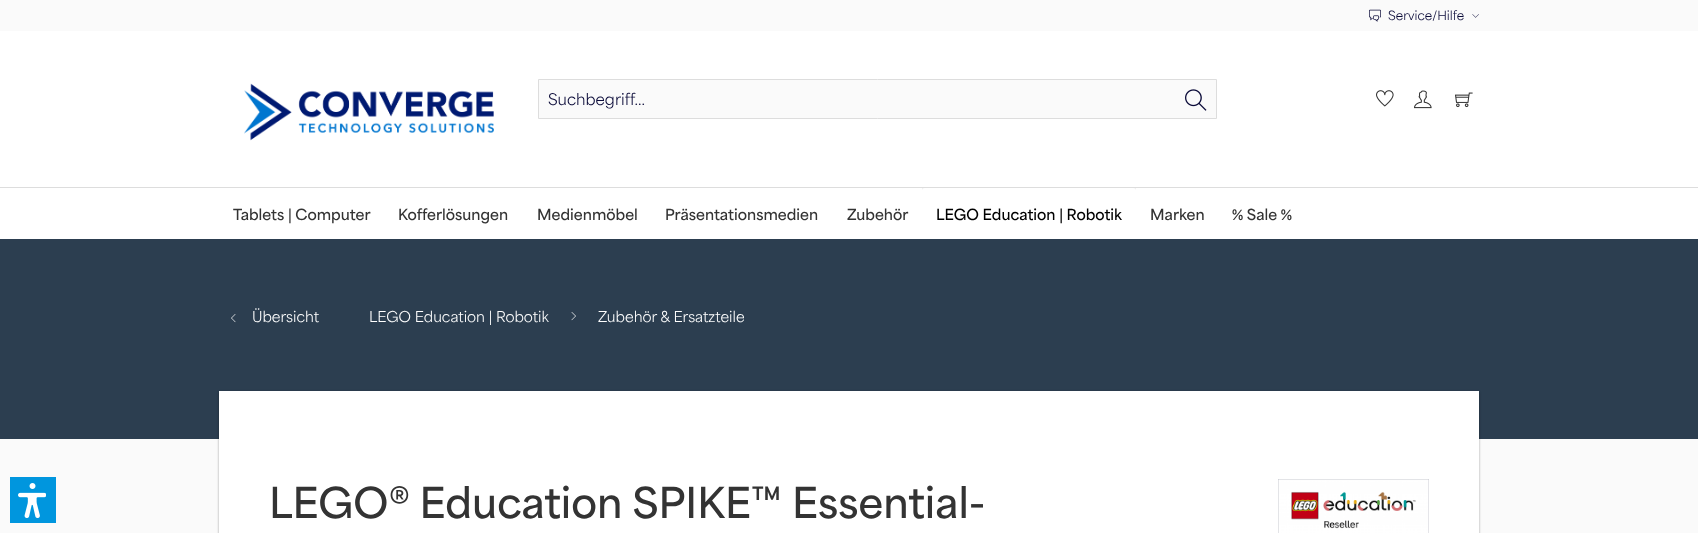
(async () => {
    const canvas = document.querySelector("canvas");
    canvas.width = 1698;
    canvas.height = 533;
    const context = canvas.getContext("2d");
    context.miterLimit = 4;
    context.fontKerning = "normal";
    function write(s, x, y, font, color) {
        context.font = font;
        context.fillStyle = color;
        context.fillText(s, x, y);
    }
    function block(x, y, w, h, color) {
        context.fillStyle = color;
        context.fillRect(x, y, w, h);
    }
    async function photo(src, x, y, w, h) {
        const img = new Image();
        img.src = src;
        await img.decode();
        context.drawImage(img, x, y, w, h);
    }

    block(0, 0, 1698, 533, "rgb(250, 250, 250)");
    block(10, 477, 46, 46, "rgb(0, 150, 222)");
    await photo("media/1.png", 18, 483, 28, 35);
    block(0, 31, 1698, 156, "rgb(255, 255, 255)");
    await photo("media/2.png", 1369, 9, 12, 13);
    write("Service/Hilfe", 1388, 20, "12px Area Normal", "rgb(10, 10, 56)");
    await photo("media/3.png", 1472, 14, 7, 4);
    await photo("media/4.png", 244, 83, 250, 58);
    context.fillStyle = "rgb(250, 250, 250)";
    context.beginPath();
    context.rect(538.5, 79.5, 678, 39);
    context.fill();
    context.strokeStyle = "rgb(221, 221, 221)";
    context.stroke();
    write("Suchbegriff...", 548, 105, "15px Area Normal", "rgb(10, 10, 56)");
    await photo("media/5.png", 1185, 89, 22, 22);
    await photo("media/6.png", 1376, 90, 18, 17);
    await photo("media/7.png", 1414, 90, 18, 19);
    await photo("media/8.png", 1455, 92, 18, 16);
    block(0, 188, 1698, 51, "rgb(255, 255, 255)");
    block(0, 187, 1698, 1, "rgb(221, 221, 221)");
    write("Tablets | Computer", 233, 220, "600 14.4px Area Normal", "rgb(51, 51, 51)");
    write("Kofferlösungen", 398, 220, "600 14.4px Area Normal", "rgb(51, 51, 51)");
    write("Medienmöbel", 537, 220, "600 14.4px Area Normal", "rgb(51, 51, 51)");
    write("Präsentationsmedien", 665, 220, "600 14.4px Area Normal", "rgb(51, 51, 51)");
    write("Zubehör", 847, 220, "600 14.4px Area Normal", "rgb(51, 51, 51)");
    block(922, 188, 214, 3, "rgb(240, 240, 240)");
    context.fillStyle = "rgb(255, 255, 255)";
    context.beginPath();
    context.roundRect(922, 188, 214, 51, [3, 3, 0, 0]);
    context.fill();
    write("LEGO Education | Robotik", 936, 220, "600 14.4px Area Normal", "rgb(0, 0, 0)");
    write("Marken", 1150, 220, "600 14.4px Area Normal", "rgb(51, 51, 51)");
    write("% Sale %", 1232, 220, "600 14.4px Area Normal", "rgb(51, 51, 51)");
    block(0, 239, 1698, 200, "rgb(44, 62, 80)");
    await photo("media/9.png", 231, 314, 5, 9);
    write("Übersicht", 252, 322, "14px Area Normal", "rgb(255, 255, 255)");
    write("LEGO Education | Robotik", 369, 322, "14px Area Normal", "rgb(255, 255, 255)");
    await photo("media/10.png", 571, 312, 5, 9);
    write("Zubehör & Ersatzteile", 598, 322, "14px Area Normal", "rgb(255, 255, 255)");
    context.fillStyle = "rgba(0, 0, 0, 0.24)";
    context.filter = "blur(1px)";
    context.beginPath();
    context.rect(219, 392, 1260, 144);
    context.fill();
    context.filter = "none";
    context.fillStyle = "rgba(0, 0, 0, 0.12)";
    context.filter = "blur(1.5px)";
    context.beginPath();
    context.rect(219, 392, 1260, 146);
    context.fill();
    context.filter = "none";
    block(219, 391, 1260, 142, "rgb(255, 255, 255)");
    write("LEGO® Education SPIKE™ Essential-", 269, 518, "600 40px Area Normal", "rgb(51, 51, 51)");
    await photo("media/11.png", 1278, 479, 151, 54);
})();
